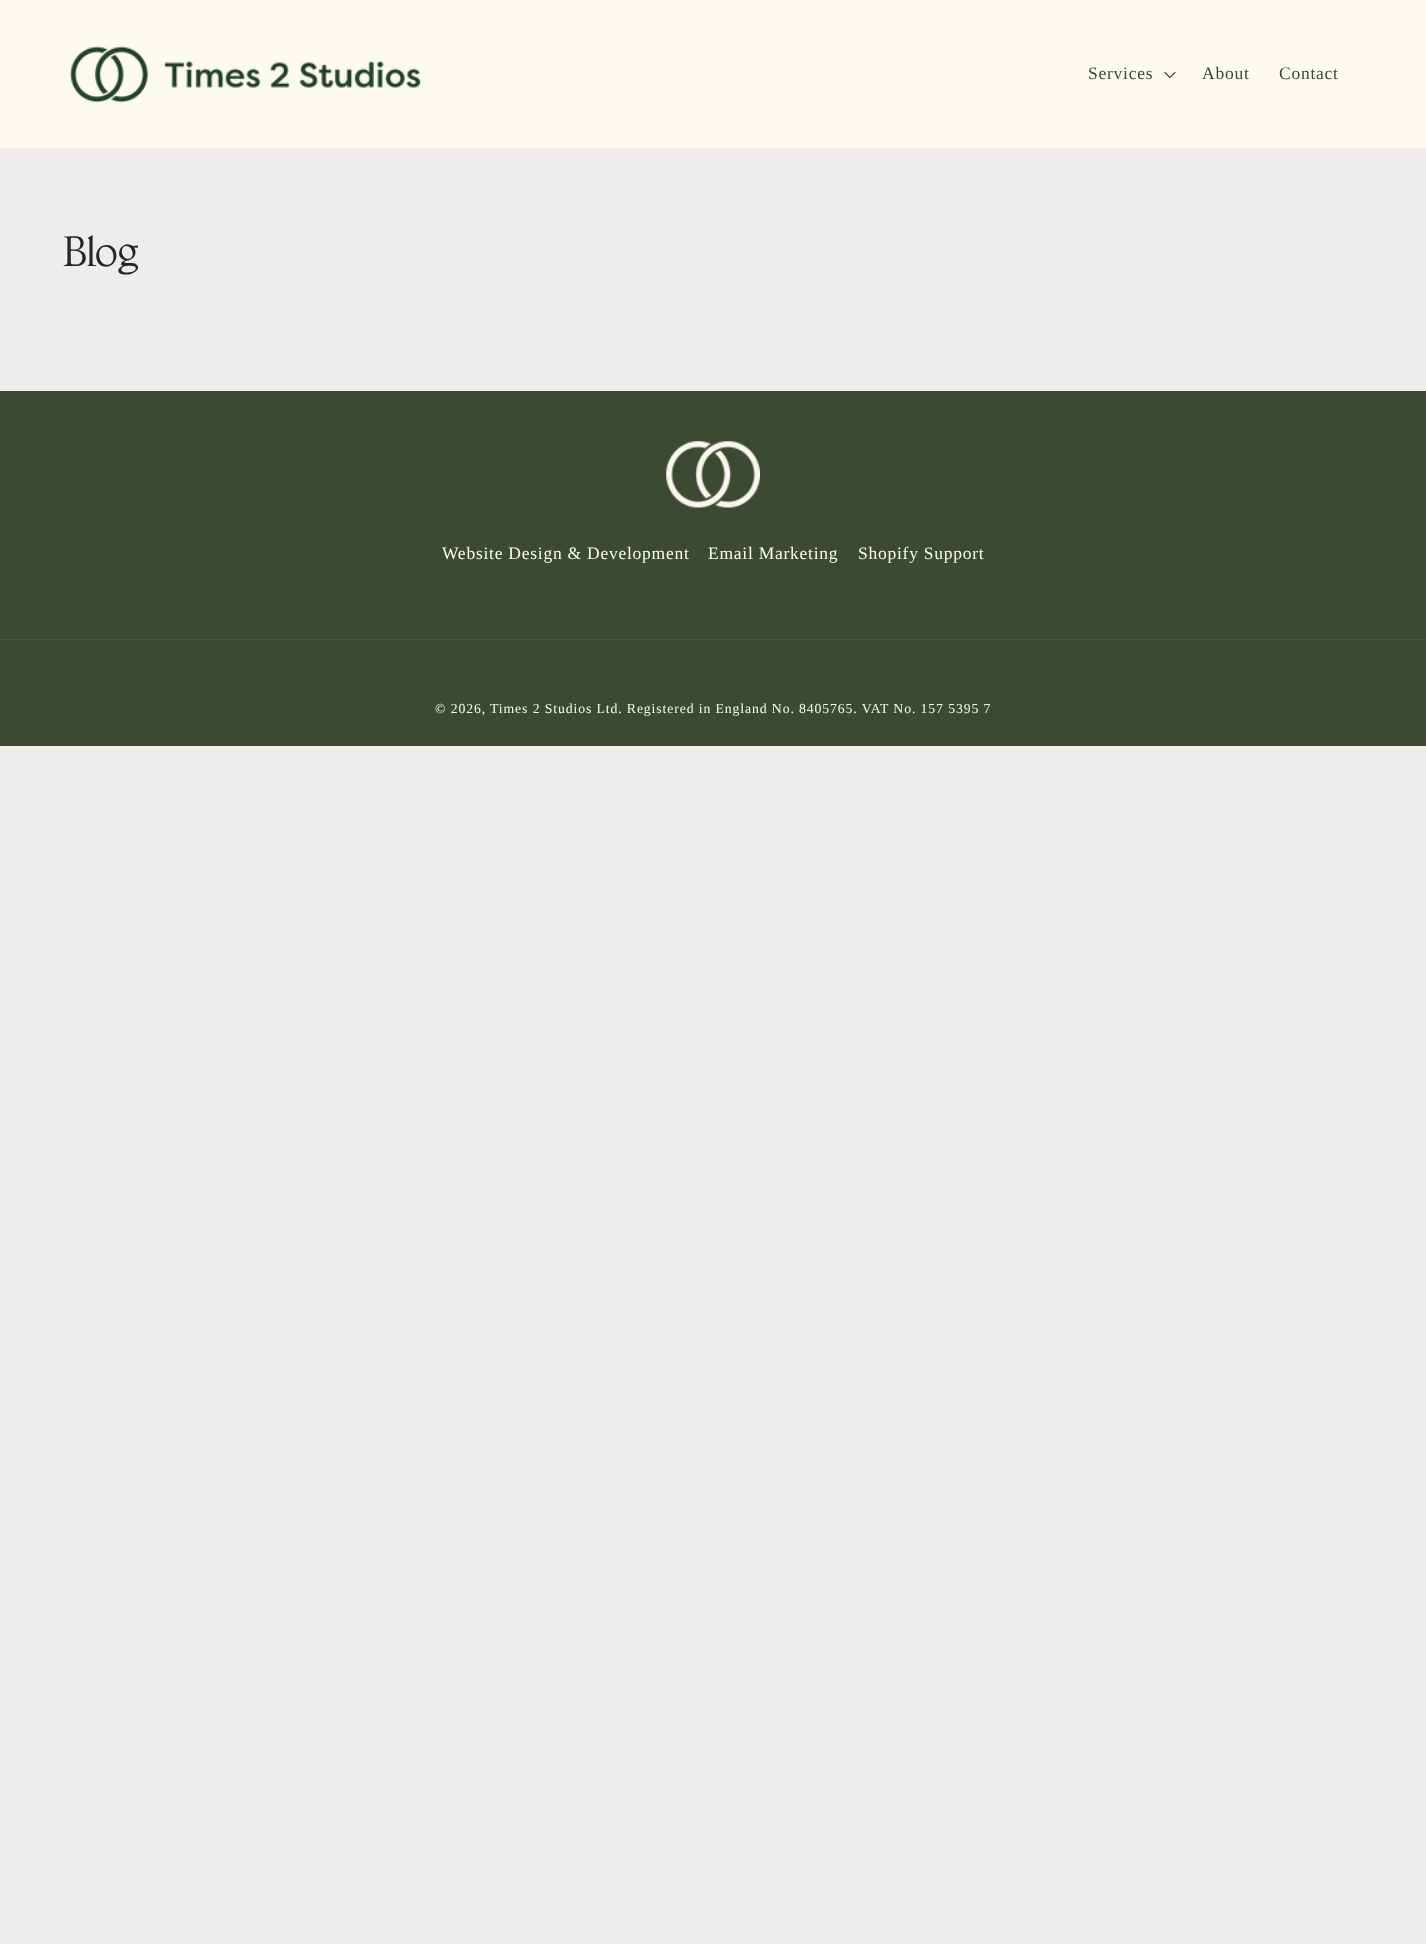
(async () => {
    const canvas = document.querySelector("canvas");
    canvas.width = 1426;
    canvas.height = 1944;
    const context = canvas.getContext("2d");
    context.miterLimit = 4;
    context.fontKerning = "normal";
    function write(s, x, y, font, color) {
        context.font = font;
        context.fillStyle = color;
        context.fillText(s, x, y);
    }
    function block(x, y, w, h, color) {
        context.fillStyle = color;
        context.fillRect(x, y, w, h);
    }
    async function photo(src, x, y, w, h) {
        const img = new Image();
        img.src = src;
        await img.decode();
        context.drawImage(img, x, y, w, h);
    }

    block(0, 0, 1426, 1944, "rgb(239, 236, 236)");
    block(0, 0, 1426, 148, "rgb(252, 250, 241)");
    block(0, 148, 1426, 1, "rgb(237, 236, 226)");
    await photo("media/1.png", 70, 46, 351, 57);
    context.letterSpacing = "0.75px";
    write("Services", 1088, 79, "17.5px Liberation Serif", "rgb(59, 74, 48)");
    await photo("media/2.png", 1164, 72, 12, 6);
    write("About", 1202, 79, "17.5px Liberation Serif", "rgb(59, 74, 48)");
    write("Contact", 1279, 79, "17.5px Liberation Serif", "rgb(59, 74, 48)");
    write("Blog", 63, 266, "44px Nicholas", "rgb(37, 37, 37)");
    block(0, 391, 1426, 355, "rgb(59, 74, 48)");
    await photo("media/3.png", 666, 441, 94, 67);
    write("Website Design & Development", 442, 559, "17.5px Liberation Serif", "rgb(252, 250, 241)");
    write("Email Marketing", 708, 559, "17.5px Liberation Serif", "rgb(252, 250, 241)");
    write("Shopify Support", 858, 559, "17.5px Liberation Serif", "rgb(252, 250, 241)");
    block(0, 639, 1426, 1, "rgb(74, 88, 63)");
    context.letterSpacing = "0.88px";
    write("© 2026, Times 2 Studios Ltd. Registered in England No. 8405765. VAT No. 157 5395 7", 435, 713, "13.75px Liberation Serif", "rgb(252, 250, 241)");
})();
